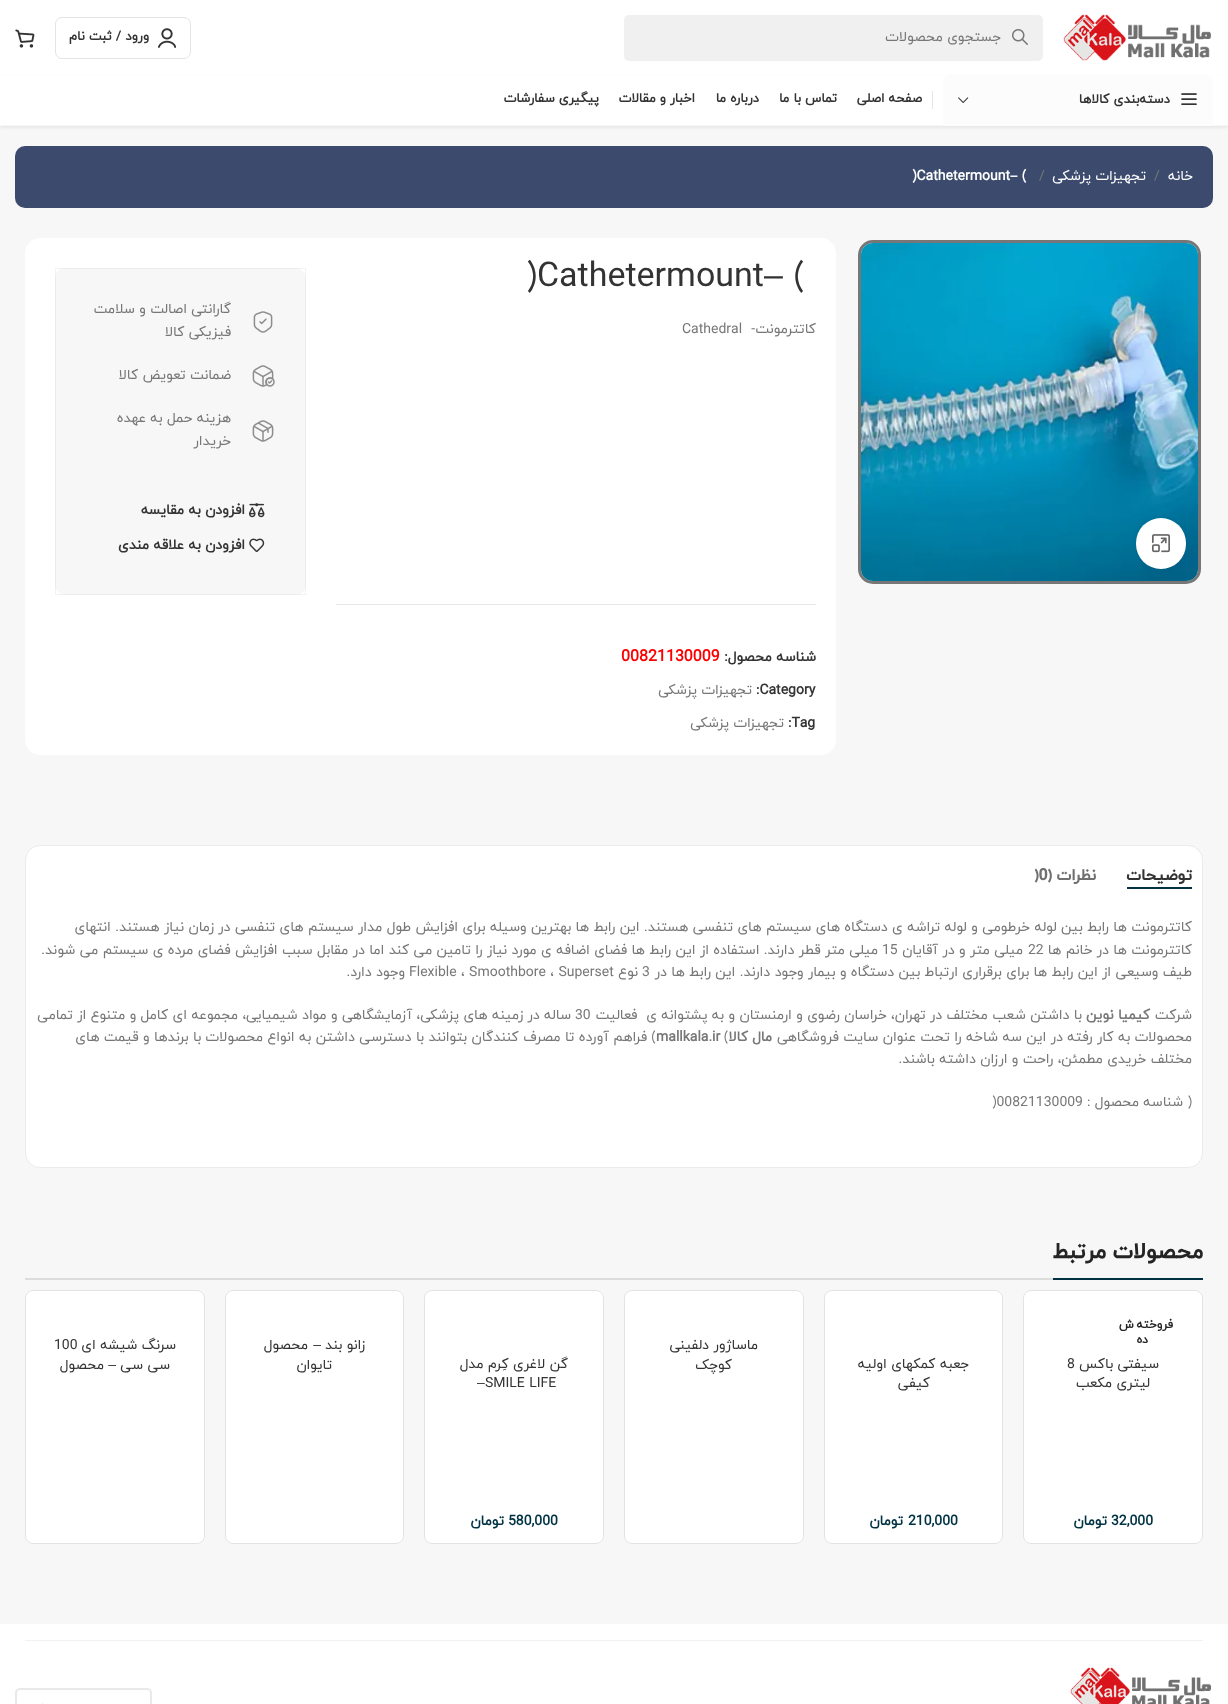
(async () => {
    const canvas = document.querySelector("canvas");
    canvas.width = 1228;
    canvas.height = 1704;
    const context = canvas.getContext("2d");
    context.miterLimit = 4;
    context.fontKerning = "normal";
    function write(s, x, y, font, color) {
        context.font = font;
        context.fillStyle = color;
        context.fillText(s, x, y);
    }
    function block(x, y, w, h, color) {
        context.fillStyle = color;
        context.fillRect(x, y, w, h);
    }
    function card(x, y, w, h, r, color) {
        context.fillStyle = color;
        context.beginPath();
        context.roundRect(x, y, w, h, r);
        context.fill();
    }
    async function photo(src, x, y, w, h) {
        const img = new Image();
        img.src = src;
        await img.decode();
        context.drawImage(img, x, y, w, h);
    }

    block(0, 0, 1228, 1704, "rgb(255, 255, 255)");
    await photo("media/1.png", 1063, 14, 148, 47);
    card(624, 15, 419, 46, 5, "rgb(240, 240, 241)");
    await photo("media/2.png", 1012, 29, 16, 16);
    context.direction = "rtl";
    write("جستجوی محصولات", 1001, 41, "14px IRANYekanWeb", "rgb(119, 119, 119)");
    context.beginPath();
    context.roundRect(55.5, 17.5, 135, 41, 6.5);
    context.strokeStyle = "rgb(228, 228, 228)";
    context.stroke();
    await photo("media/3.png", 158, 28, 18, 20);
    write("ورود / ثبت نام", 149, 40, "bold 13px IRANYekanWeb", "rgb(51, 51, 51)");
    await photo("media/4.png", 15, 29, 20, 19);
    block(0, 126, 1228, 1498, "rgb(247, 247, 247)");
    context.fillStyle = "rgba(95, 95, 95, 0.1)";
    context.filter = "blur(1.5px)";
    context.beginPath();
    context.rect(0, 77, 1228, 51);
    context.fill();
    context.filter = "none";
    block(0, 76, 1228, 49, "rgb(255, 255, 255)");
    block(0, 125, 1228, 1, "rgb(247, 247, 247)");
    context.fillStyle = "rgb(252, 252, 252)";
    context.beginPath();
    context.roundRect(943, 75, 270, 51, [8, 8, 0, 0]);
    context.fill();
    await photo("media/5.png", 1181, 93, 16, 12);
    write("دسته‌بندی کالاها", 1170, 103, "bold 13px IRANYekanWeb", "rgb(51, 51, 51)");
    await photo("media/6.png", 958, 97, 11, 6);
    block(932, 91, 1, 18, "rgb(228, 228, 228)");
    write("صفحه اصلی", 922, 102, "bold 13px IRANYekanWeb", "rgb(51, 51, 51)");
    write("تماس با ما", 837, 102, "bold 13px IRANYekanWeb", "rgb(51, 51, 51)");
    write("درباره ما", 759, 102, "bold 13px IRANYekanWeb", "rgb(51, 51, 51)");
    write("اخبار و مقالات", 695, 102, "bold 13px IRANYekanWeb", "rgb(51, 51, 51)");
    write("پیگیری سفارشات", 599, 102, "bold 13px IRANYekanWeb", "rgb(51, 51, 51)");
    card(15, 146, 1198, 62, 10, "rgb(60, 75, 109)");
    write("خانه", 1193, 180, "14px IRANYekanWeb", "rgb(255, 255, 255)");
    context.direction = "ltr";
    write("/", 1154, 180, "14px IRANYekanWeb", "rgb(119, 119, 119)");
    context.direction = "rtl";
    write("تجهیزات پزشکی", 1146, 180, "14px IRANYekanWeb", "rgb(255, 255, 255)");
    context.direction = "ltr";
    write("/", 1039, 180, "14px IRANYekanWeb", "rgb(119, 119, 119)");
    write("(", 1022, 180, "bold 14px IRANYekanWeb", "rgb(255, 255, 255)");
    write(")Cathetermount", 912, 180, "bold 14px IRANYekanWeb", "rgb(255, 255, 255)");
    write("–", 1010, 180, "bold 14px Liberation Sans", "rgb(255, 255, 255)");
    context.beginPath();
    context.roundRect(859.5, 241.5, 340, 341, 13.5);
    context.strokeStyle = "rgb(119, 119, 119)";
    context.lineWidth = 3;
    context.stroke();
    await photo("media/7.png", 861, 243, 337, 338);
    context.fillStyle = "rgba(0, 0, 0, 0.08)";
    context.filter = "blur(2.5px)";
    context.beginPath();
    context.roundRect(1136, 518, 50, 51, 25);
    context.fill();
    context.filter = "none";
    card(1136, 518, 50, 51, 25, "rgb(255, 255, 255)");
    await photo("media/8.png", 1152, 534, 18, 19);
    card(25, 238, 811, 517, 15, "rgb(255, 255, 255)");
    block(336, 604, 480, 1, "rgb(231, 231, 231)");
    write("(", 794, 286, "34px IRANYekanWeb", "rgb(51, 51, 51)");
    write("–", 764, 286, "34px Liberation Sans", "rgb(51, 51, 51)");
    write(")Cathetermount", 526, 286, "34px IRANYekanWeb", "rgb(51, 51, 51)");
    context.direction = "rtl";
    write("کاتترمونت-", 816, 333, "14px IRANYekanWeb", "rgb(119, 119, 119)");
    context.direction = "ltr";
    write("Cathedral", 682, 333, "14px IRANYekanWeb", "rgb(119, 119, 119)");
    card(55, 268, 251, 327, 10, "rgb(247, 247, 247)");
    context.strokeStyle = "rgba(16, 16, 16, 0.05)";
    context.lineWidth = 1;
    context.strokeRect(55.5, 268.5, 250, 326);
    await photo("media/9.png", 253, 311, 20, 22);
    context.direction = "rtl";
    write("گارانتی اصالت و سلامت", 231, 313, "14px IRANYekanWeb", "rgb(119, 119, 119)");
    write("فیزیکی کالا", 231, 336, "14px IRANYekanWeb", "rgb(119, 119, 119)");
    await photo("media/10.png", 252, 365, 23, 22);
    write("ضمانت تعویض کالا", 231, 379, "14px IRANYekanWeb", "rgb(119, 119, 119)");
    await photo("media/11.png", 252, 420, 22, 22);
    write("هزینه حمل به عهده", 231, 422, "14px IRANYekanWeb", "rgb(119, 119, 119)");
    write("خریدار", 231, 445, "14px IRANYekanWeb", "rgb(119, 119, 119)");
    await photo("media/12.png", 249, 503, 16, 15);
    write("افزودن به مقایسه", 245, 514, "bold 14px IRANYekanWeb", "rgb(51, 51, 51)");
    await photo("media/13.png", 249, 538, 16, 14);
    write("افزودن به علاقه مندی", 245, 549, "bold 14px IRANYekanWeb", "rgb(51, 51, 51)");
    write("شناسه محصول:", 816, 661, "bold 14px IRANYekanWeb", "rgb(51, 51, 51)");
    context.direction = "ltr";
    write("00821130009", 621, 661, "bold 16px IRANYekanWeb", "rgb(255, 0, 0)");
    write(":Category", 756, 694, "bold 14px IRANYekanWeb", "rgb(51, 51, 51)");
    context.direction = "rtl";
    write("تجهیزات پزشکی", 752, 694, "14px IRANYekanWeb", "rgb(119, 119, 119)");
    context.direction = "ltr";
    write(":Tag", 788, 727, "bold 14px IRANYekanWeb", "rgb(51, 51, 51)");
    context.direction = "rtl";
    write("تجهیزات پزشکی", 784, 727, "14px IRANYekanWeb", "rgb(119, 119, 119)");
    context.fillStyle = "rgb(255, 255, 255)";
    context.beginPath();
    context.roundRect(25.5, 845.5, 1177, 322, 14.5);
    context.fill();
    context.strokeStyle = "rgb(235, 235, 235)";
    context.stroke();
    write("توضیحات", 1192, 880, "bold 16px 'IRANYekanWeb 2'", "rgb(51, 51, 51)");
    block(1127, 887, 65, 2, "rgb(0, 50, 68)");
    write("نظرات (", 1096, 880, "bold 16px 'IRANYekanWeb 2'", "rgb(112, 112, 112)");
    context.direction = "ltr";
    write(")0", 1034, 880, "bold 16px 'IRANYekanWeb 2'", "rgb(112, 112, 112)");
    context.direction = "rtl";
    write("کاتترمونت ها رابط بین لوله خرطومی و لوله تراشه ی دستگاه های سیستم های تنفسی هستند. این رابط ها بهترین وسیله برای افزایش طول مدار سیستم های تنفسی در زمان نیاز هستند. انتهای", 1192, 931, "14px IRANYekanWeb", "rgb(119, 119, 119)");
    write("کاتترمونت ها در خانم ها", 1192, 954, "14px IRANYekanWeb", "rgb(119, 119, 119)");
    context.direction = "ltr";
    write("22", 1028, 954, "14px IRANYekanWeb", "rgb(119, 119, 119)");
    context.direction = "rtl";
    write("میلی متر و در آقایان", 1023, 954, "14px IRANYekanWeb", "rgb(119, 119, 119)");
    context.direction = "ltr";
    write("15", 882, 954, "14px IRANYekanWeb", "rgb(119, 119, 119)");
    context.direction = "rtl";
    write("میلی متر قطر دارند. استفاده از این رابط ها فضای اضافه ی مورد نیاز را تامین می کند اما در مقابل سبب افزایش فضای مرده ی سیستم می شوند.", 878, 954, "14px IRANYekanWeb", "rgb(119, 119, 119)");
    write("طیف وسیعی از این رابط ها برای برقراری ارتباط بین دستگاه و بیمار وجود دارند. این رابط ها در", 1192, 976, "14px IRANYekanWeb", "rgb(119, 119, 119)");
    context.direction = "ltr";
    write("3", 642, 976, "14px IRANYekanWeb", "rgb(119, 119, 119)");
    context.direction = "rtl";
    write("نوع", 638, 976, "14px IRANYekanWeb", "rgb(119, 119, 119)");
    context.direction = "ltr";
    write("Flexible ، Smoothbore ، Superset", 409, 976, "14px IRANYekanWeb", "rgb(119, 119, 119)");
    context.direction = "rtl";
    write("وجود دارد.", 405, 976, "14px IRANYekanWeb", "rgb(119, 119, 119)");
    write("شرکت", 1192, 1019, "14px IRANYekanWeb", "rgb(119, 119, 119)");
    write("کیمیا نوین", 1150, 1019, "bold 14px IRANYekanWeb", "rgb(119, 119, 119)");
    write("با داشتن شعب مختلف در تهران، خراسان رضوی و ارمنستان و به پشتوانه ی  فعالیت", 1082, 1019, "14px IRANYekanWeb", "rgb(119, 119, 119)");
    context.direction = "ltr";
    write("30", 575, 1019, "14px IRANYekanWeb", "rgb(119, 119, 119)");
    context.direction = "rtl";
    write("ساله در زمینه های پزشکی، آزمایشگاهی و مواد شیمیایی، مجموعه ای کامل و متنوع از تمامی", 571, 1019, "14px IRANYekanWeb", "rgb(119, 119, 119)");
    write("محصولات به کار رفته در این سه شاخه را تحت عنوان سایت فروشگاهی", 1192, 1041, "14px IRANYekanWeb", "rgb(119, 119, 119)");
    write("مال کالا", 772, 1041, "bold 14px IRANYekanWeb", "rgb(119, 119, 119)");
    context.direction = "ltr";
    write("(", 724, 1041, "14px IRANYekanWeb", "rgb(119, 119, 119)");
    write("mallkala.ir", 656, 1041, "bold 14px IRANYekanWeb", "rgb(119, 119, 119)");
    context.direction = "rtl";
    write(") فراهم آورده تا مصرف کنندگان بتوانند با دسترسی داشتن به انواع محصولات با برندها و قیمت های", 656, 1041, "14px IRANYekanWeb", "rgb(119, 119, 119)");
    write("مختلف خریدی مطمئن، راحت و ارزان داشته باشند.", 1192, 1063, "14px IRANYekanWeb", "rgb(119, 119, 119)");
    write("( شناسه محصول :", 1192, 1106, "14px IRANYekanWeb", "rgb(119, 119, 119)");
    context.direction = "ltr";
    write(")00821130009", 992, 1106, "14px IRANYekanWeb", "rgb(119, 119, 119)");
    block(25, 1278, 1028, 2, "rgb(221, 221, 221)");
    block(1053, 1278, 150, 2, "rgb(0, 50, 68)");
    context.direction = "rtl";
    write("محصولات مرتبط", 1203, 1258, "bold 22px 'IRANYekanWeb 2'", "rgb(36, 36, 36)");
    card(1023, 1290, 180, 254, 8, "rgb(255, 255, 255)");
    context.beginPath();
    context.roundRect(1023.5, 1290.5, 179, 253, 7.5);
    context.strokeStyle = "rgba(0, 0, 0, 0.11)";
    context.stroke();
    context.wordSpacing = "-1px";
    write("فروخته ش", 1173, 1328, "bold 12px IRANYekanWeb", "rgb(36, 36, 36)");
    context.wordSpacing = "0px";
    write("ده", 1148, 1343, "bold 12px IRANYekanWeb", "rgb(36, 36, 36)");
    write("سیفتی باکس", 1159, 1368, "14px IRANYekanWeb", "rgb(51, 51, 51)");
    context.direction = "ltr";
    write("8", 1067, 1368, "14px IRANYekanWeb", "rgb(51, 51, 51)");
    context.direction = "rtl";
    write("لیتری مکعب", 1150, 1387, "14px IRANYekanWeb", "rgb(51, 51, 51)");
    context.direction = "ltr";
    write("32,000", 1111, 1525, "bold 14px IRANYekanWeb", "rgb(0, 50, 68)");
    context.direction = "rtl";
    write("تومان", 1107, 1525, "bold 14px IRANYekanWeb", "rgb(0, 50, 68)");
    card(824, 1290, 179, 254, 8, "rgb(255, 255, 255)");
    context.beginPath();
    context.roundRect(824.5, 1290.5, 178, 253, 7.5);
    context.stroke();
    write("جعبه کمکهای اولیه", 969, 1368, "14px IRANYekanWeb", "rgb(51, 51, 51)");
    write("کیفی", 930, 1387, "14px IRANYekanWeb", "rgb(51, 51, 51)");
    context.direction = "ltr";
    write("210,000", 908, 1525, "bold 14px IRANYekanWeb", "rgb(0, 50, 68)");
    context.direction = "rtl";
    write("تومان", 903, 1525, "bold 14px IRANYekanWeb", "rgb(0, 50, 68)");
    card(624, 1290, 180, 254, 8, "rgb(255, 255, 255)");
    context.beginPath();
    context.roundRect(624.5, 1290.5, 179, 253, 7.5);
    context.stroke();
    write("ماساژور دلفینی", 758, 1349, "14px IRANYekanWeb", "rgb(51, 51, 51)");
    write("کوچک", 732, 1369, "14px IRANYekanWeb", "rgb(51, 51, 51)");
    card(424, 1290, 180, 254, 8, "rgb(255, 255, 255)");
    context.beginPath();
    context.roundRect(424.5, 1290.5, 179, 253, 7.5);
    context.stroke();
    write("گن لاغری کِرم مدل", 568, 1368, "14px IRANYekanWeb", "rgb(51, 51, 51)");
    context.direction = "ltr";
    write("SMILE LIFE", 485, 1387, "14px IRANYekanWeb", "rgb(51, 51, 51)");
    write("–", 477, 1387, "14px Liberation Sans", "rgb(51, 51, 51)");
    write("580,000", 508, 1525, "bold 14px IRANYekanWeb", "rgb(0, 50, 68)");
    context.direction = "rtl";
    write("تومان", 504, 1525, "bold 14px IRANYekanWeb", "rgb(0, 50, 68)");
    card(225, 1290, 179, 254, 8, "rgb(255, 255, 255)");
    context.beginPath();
    context.roundRect(225.5, 1290.5, 178, 253, 7.5);
    context.stroke();
    write("زانو بند", 365, 1349, "14px IRANYekanWeb", "rgb(51, 51, 51)");
    write("–", 321, 1349, "14px Liberation Sans", "rgb(51, 51, 51)");
    write("محصول", 308, 1349, "14px IRANYekanWeb", "rgb(51, 51, 51)");
    write("تایوان", 332, 1369, "14px IRANYekanWeb", "rgb(51, 51, 51)");
    card(25, 1290, 180, 254, 8, "rgb(255, 255, 255)");
    context.beginPath();
    context.roundRect(25.5, 1290.5, 179, 253, 7.5);
    context.stroke();
    write("سرنگ شیشه ای", 176, 1349, "14px IRANYekanWeb", "rgb(51, 51, 51)");
    context.direction = "ltr";
    write("100", 54, 1349, "14px IRANYekanWeb", "rgb(51, 51, 51)");
    context.direction = "rtl";
    write("سی سی", 170, 1369, "14px IRANYekanWeb", "rgb(51, 51, 51)");
    write("–", 116, 1369, "14px Liberation Sans", "rgb(51, 51, 51)");
    write("محصول", 104, 1369, "14px IRANYekanWeb", "rgb(51, 51, 51)");
    block(25, 1640, 1178, 1, "rgb(241, 241, 241)");
    await photo("media/14.png", 1070, 1667, 141, 37);
    context.beginPath();
    context.roundRect(16, 1689, 135, 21, 4);
    context.strokeStyle = "rgb(233, 233, 233)";
    context.lineWidth = 2;
    context.stroke();
    block(42, 1703, 1, 1, "rgb(232, 232, 232)");
})();
